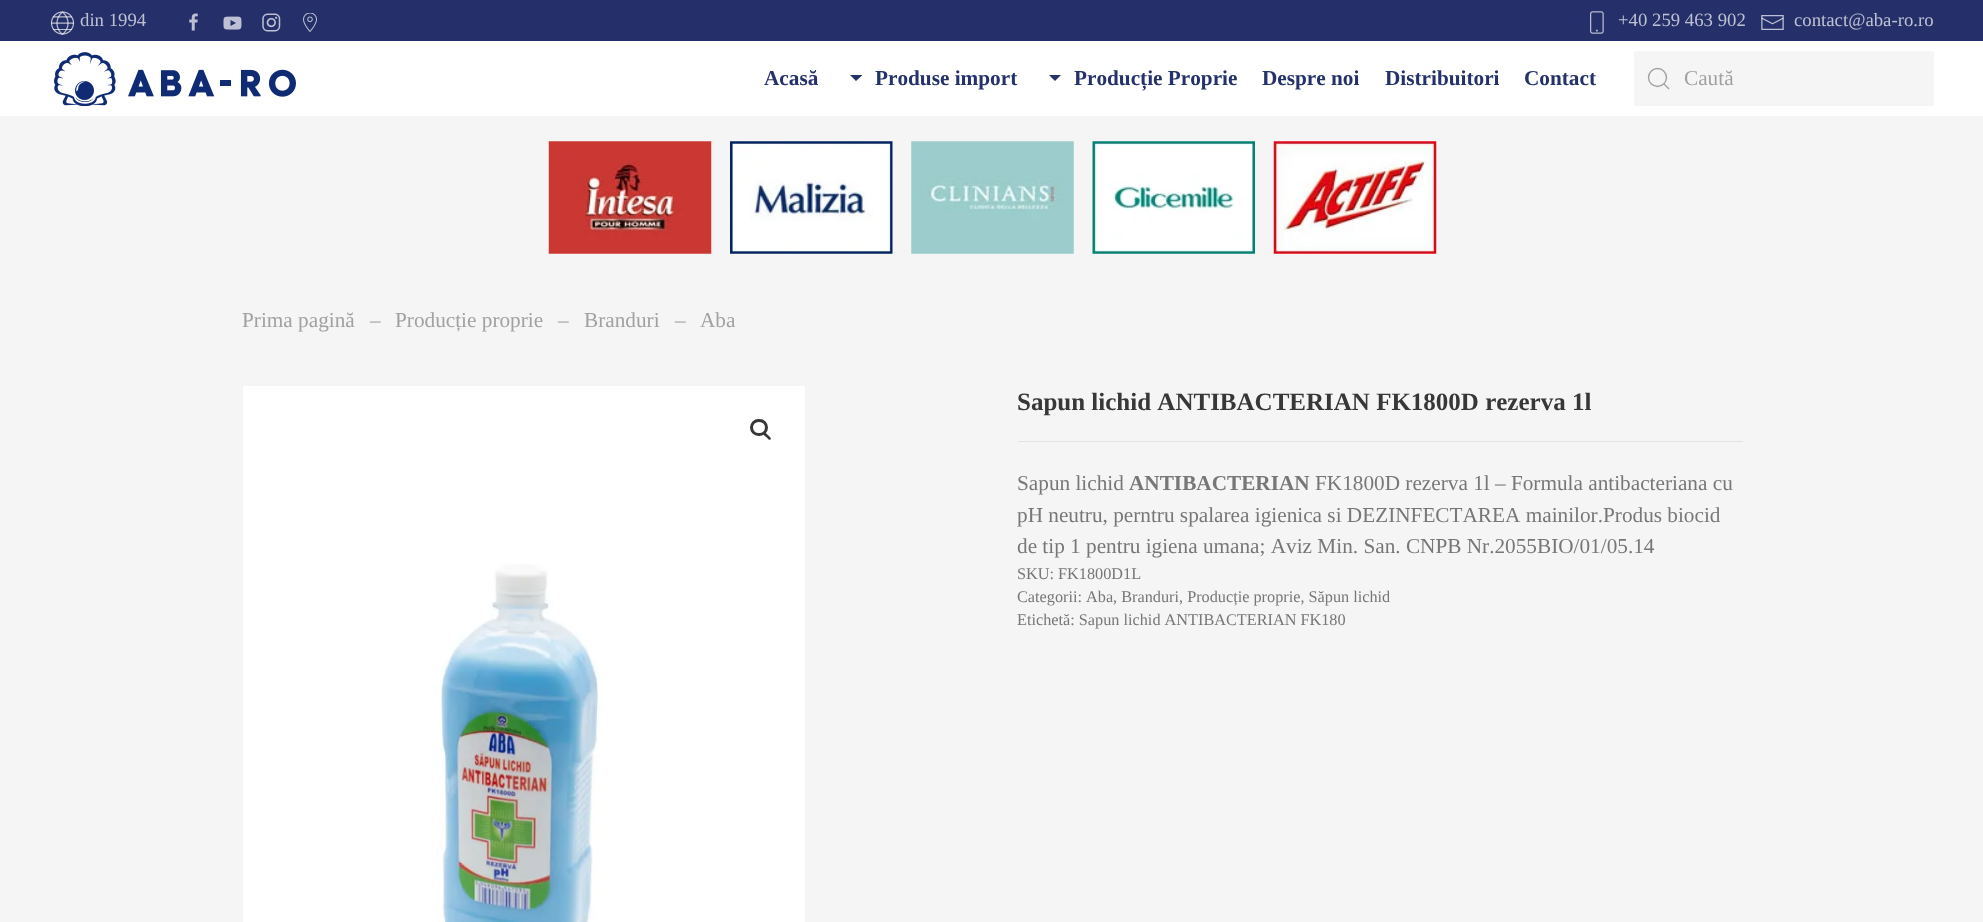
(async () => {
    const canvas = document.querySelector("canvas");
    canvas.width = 1983;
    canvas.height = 922;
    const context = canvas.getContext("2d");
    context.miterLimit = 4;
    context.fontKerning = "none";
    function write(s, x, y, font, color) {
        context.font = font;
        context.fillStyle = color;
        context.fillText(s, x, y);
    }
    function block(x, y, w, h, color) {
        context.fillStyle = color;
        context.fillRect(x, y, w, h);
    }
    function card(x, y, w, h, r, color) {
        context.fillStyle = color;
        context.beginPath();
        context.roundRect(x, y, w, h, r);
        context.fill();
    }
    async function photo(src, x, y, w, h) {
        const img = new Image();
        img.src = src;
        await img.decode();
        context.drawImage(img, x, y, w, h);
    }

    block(0, 0, 1983, 922, "rgb(255, 255, 255)");
    block(0, 0, 1983, 41, "rgb(37, 48, 106)");
    await photo("media/1.png", 50, 11, 25, 24);
    write("din 1994", 80, 26, "18.75px Liberation Serif", "rgb(190, 193, 210)");
    await photo("media/2.png", 189, 13, 9, 18);
    await photo("media/3.png", 223, 16, 19, 14);
    await photo("media/4.png", 262, 13, 19, 19);
    await photo("media/5.png", 303, 13, 14, 19);
    await photo("media/6.png", 1590, 11, 14, 23);
    write("+40 259 463 902", 1618, 26, "18.75px Liberation Serif", "rgb(190, 193, 210)");
    await photo("media/7.png", 1761, 15, 23, 15);
    write("contact@aba-ro.ro", 1794, 26, "18.75px Liberation Serif", "rgb(190, 193, 210)");
    await photo("media/8.png", 54, 52, 242, 54);
    write("Acasă", 764, 85, "bold 21.25px Liberation Serif", "rgb(37, 49, 106)");
    context.beginPath();
    context.moveTo(850, 75);
    context.lineTo(862.5, 75);
    context.lineTo(856, 81);
    context.closePath();
    context.fill();
    write("Produse import", 875, 85, "bold 21.25px Liberation Serif", "rgb(37, 49, 106)");
    context.beginPath();
    context.moveTo(1049, 75);
    context.lineTo(1061, 75);
    context.lineTo(1055, 81);
    context.closePath();
    context.fill();
    write("Producție Proprie", 1074, 85, "bold 21.25px Liberation Serif", "rgb(37, 49, 106)");
    write("Despre noi", 1262, 85, "bold 21.25px Liberation Serif", "rgb(37, 49, 106)");
    write("Distribuitori", 1385, 85, "bold 21.25px Liberation Serif", "rgb(37, 49, 106)");
    write("Contact", 1524, 85, "bold 21.25px Liberation Serif", "rgb(37, 49, 106)");
    card(1634, 51, 300, 55, 2.5, "rgb(245, 245, 245)");
    context.beginPath();
    context.arc(1657.5, 77.5, 9, 0, Math.PI * 2);
    context.strokeStyle = "rgb(161, 161, 161)";
    context.lineWidth = 1.4;
    context.stroke();
    context.beginPath();
    context.moveTo(1664, 84);
    context.lineTo(1669, 89);
    context.closePath();
    context.stroke();
    write("Caută", 1684, 85, "21.25px Liberation Serif", "rgb(161, 161, 161)");
    block(0, 116, 1983, 806, "rgb(245, 245, 245)");
    await photo("media/9.png", 548, 141, 164, 113);
    await photo("media/10.png", 730, 141, 163, 113);
    await photo("media/11.png", 911, 141, 163, 113);
    await photo("media/12.png", 1092, 141, 163, 113);
    await photo("media/13.png", 1273, 141, 164, 113);
    write("Prima pagină", 242, 327, "21.25px Liberation Serif", "rgb(161, 161, 161)");
    write("–", 370, 327, "21.25px Liberation Serif", "rgb(161, 161, 161)");
    write("Producție proprie", 395, 327, "21.25px Liberation Serif", "rgb(161, 161, 161)");
    write("–", 558, 327, "21.25px Liberation Serif", "rgb(161, 161, 161)");
    write("Branduri", 584, 327, "21.25px Liberation Serif", "rgb(161, 161, 161)");
    write("–", 675, 327, "21.25px Liberation Serif", "rgb(161, 161, 161)");
    write("Aba", 700, 327, "21.25px Liberation Serif", "rgb(161, 161, 161)");
    await photo("media/14.png", 243, 386, 562, 536);
    context.beginPath();
    context.roundRect(751.5, 420.5, 15, 14, 7);
    context.strokeStyle = "rgb(55, 55, 55)";
    context.lineWidth = 3;
    context.stroke();
    context.fillStyle = "rgb(55, 55, 55)";
    context.beginPath();
    context.moveTo(763.5, 432.5);
    context.bezierCurveTo(765, 431, 767, 434.5, 768, 435);
    context.bezierCurveTo(768.5, 436, 772, 438, 770.5, 439.5);
    context.bezierCurveTo(769, 441, 767, 437.5, 766, 437);
    context.bezierCurveTo(765, 436, 762, 434, 763.5, 432.5);
    context.closePath();
    context.fill();
    write("Sapun lichid ANTIBACTERIAN FK1800D rezerva 1l", 1017, 410, "bold 25px Liberation Serif", "rgb(55, 55, 55)");
    block(1018, 441, 725, 1, "rgb(226, 226, 226)");
    write("Sapun lichid", 1017, 490, "21.25px Liberation Serif", "rgb(119, 119, 119)");
    write("ANTIBACTERIAN", 1129, 490, "bold 21.25px Liberation Serif", "rgb(119, 119, 119)");
    write("FK1800D rezerva 1l – Formula antibacteriana cu", 1315, 490, "21.25px Liberation Serif", "rgb(119, 119, 119)");
    write("pH neutru, perntru spalarea igienica si DEZINFECTAREA mainilor.Produs biocid", 1017, 522, "21.25px Liberation Serif", "rgb(119, 119, 119)");
    write("de tip 1 pentru igiena umana; Aviz Min. San. CNPB Nr.2055BIO/01/05.14", 1017, 553, "21.25px Liberation Serif", "rgb(119, 119, 119)");
    write("SKU: FK1800D1L", 1017, 579, "16.25px Liberation Serif", "rgb(119, 119, 119)");
    write("Categorii: Aba, Branduri, Producție proprie, Săpun lichid", 1017, 602, "16.25px Liberation Serif", "rgb(119, 119, 119)");
    write("Etichetă: Sapun lichid ANTIBACTERIAN FK180", 1017, 625, "16.25px Liberation Serif", "rgb(119, 119, 119)");
})();
